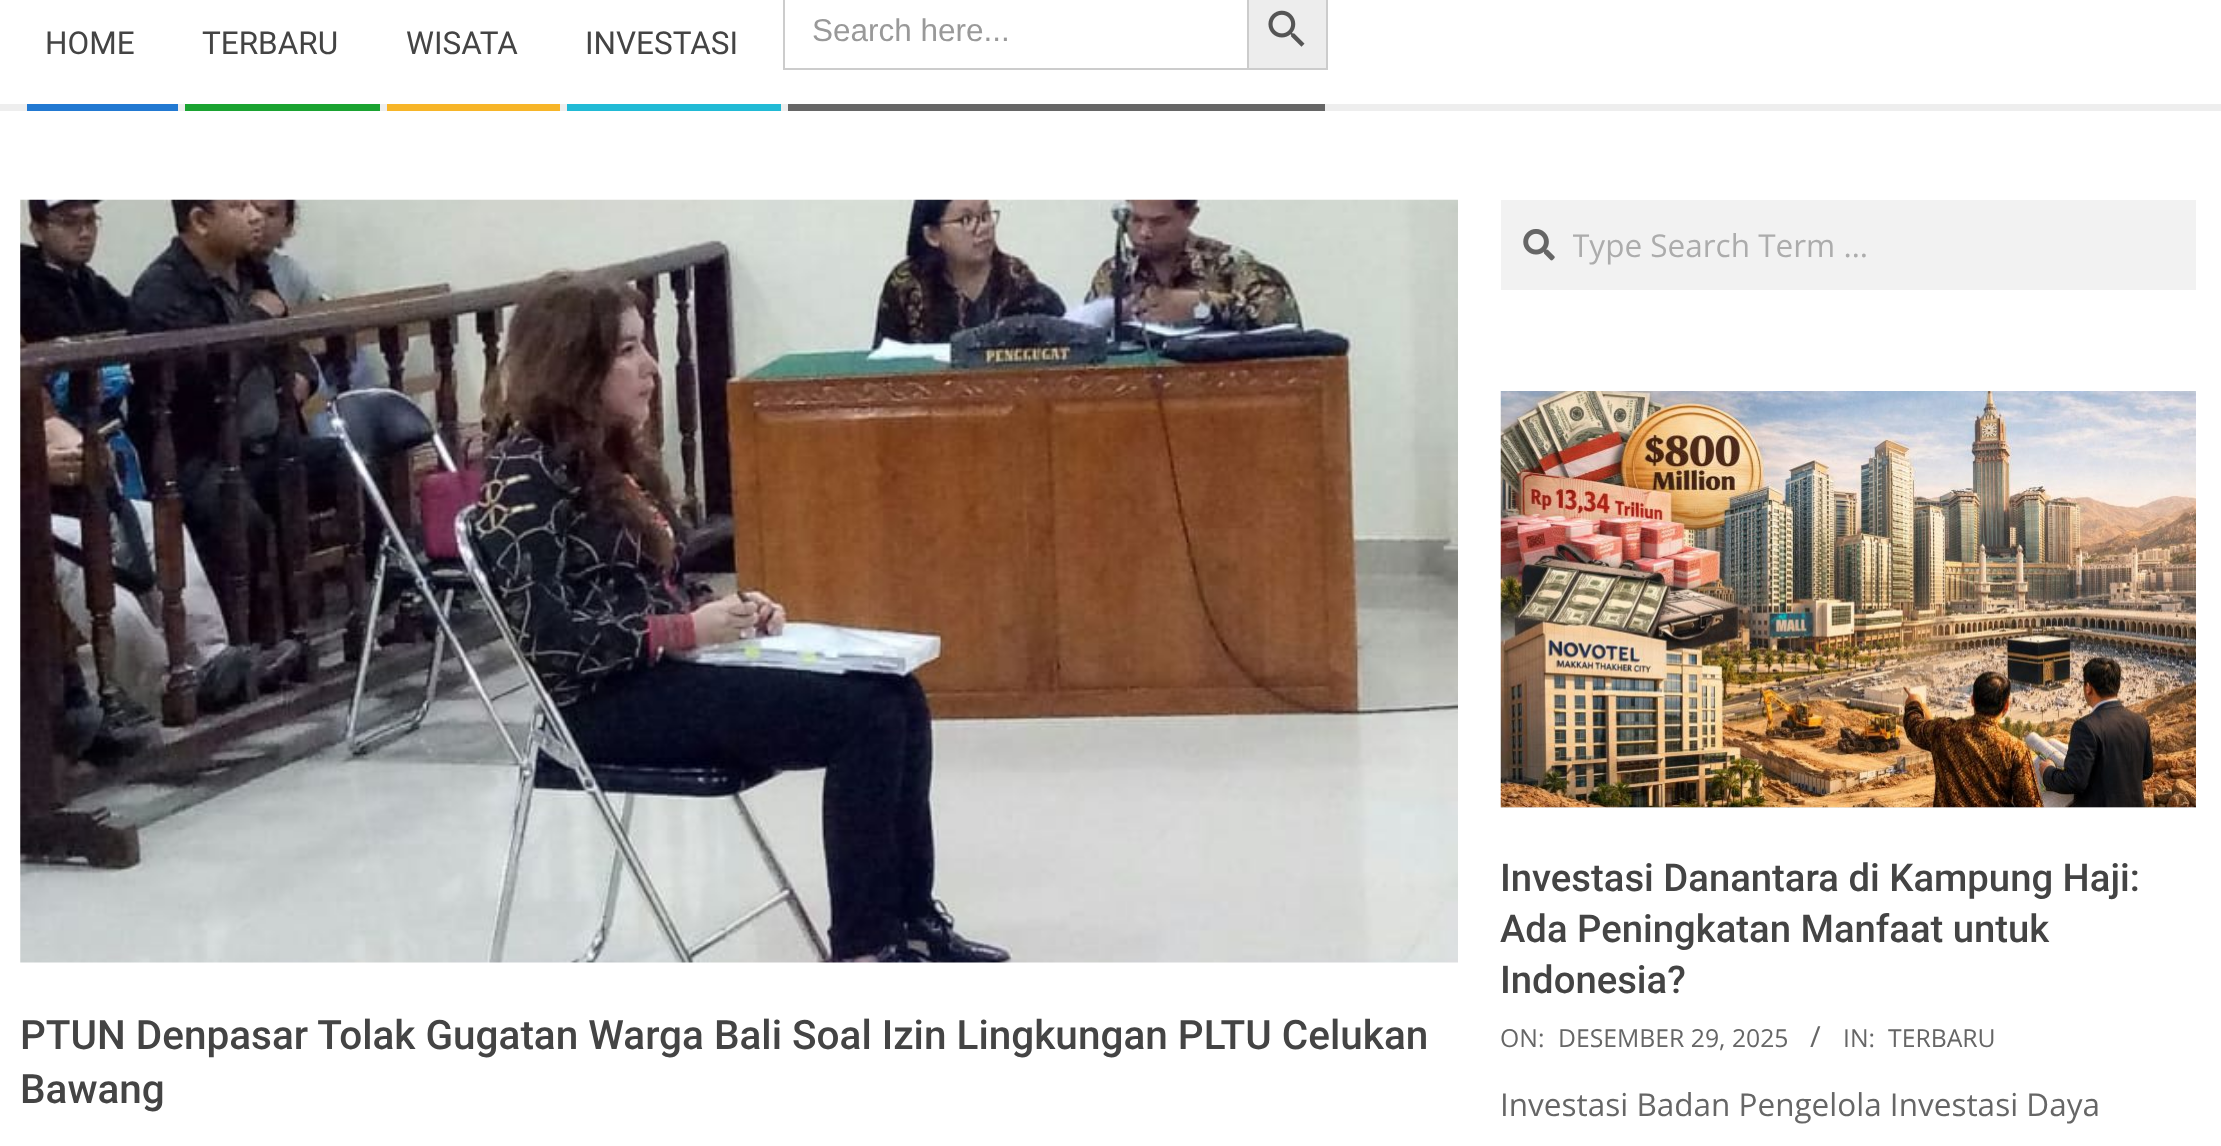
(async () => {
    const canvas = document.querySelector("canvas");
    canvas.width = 2221;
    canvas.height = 1146;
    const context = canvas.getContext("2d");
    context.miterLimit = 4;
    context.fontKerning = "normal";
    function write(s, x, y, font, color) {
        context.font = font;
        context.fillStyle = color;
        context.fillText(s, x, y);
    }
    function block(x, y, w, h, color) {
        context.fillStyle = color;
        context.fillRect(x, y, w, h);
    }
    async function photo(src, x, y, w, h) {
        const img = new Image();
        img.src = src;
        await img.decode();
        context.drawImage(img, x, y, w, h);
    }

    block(0, 0, 2221, 1146, "rgb(255, 255, 255)");
    block(0, 104, 2221, 7, "rgb(238, 238, 238)");
    write("HOME", 45, 54, "31.5px Roboto", "rgb(68, 68, 68)");
    block(27, 104, 151, 7, "rgb(34, 121, 210)");
    write("TERBARU", 202, 54, "31.5px Roboto", "rgb(68, 68, 68)");
    block(185, 104, 195, 7, "rgb(26, 163, 49)");
    write("WISATA", 406, 54, "31.5px Roboto", "rgb(68, 68, 68)");
    block(387, 104, 173, 7, "rgb(247, 181, 40)");
    write("INVESTASI", 585, 54, "31.5px Roboto", "rgb(68, 68, 68)");
    block(567, 104, 214, 7, "rgb(33, 186, 213)");
    block(783, 68, 464, 2, "rgb(204, 204, 204)");
    block(783, 0, 2, 70, "rgb(204, 204, 204)");
    write("Search here...", 812, 41, "31.5px Liberation Sans", "rgb(153, 153, 153)");
    context.fillStyle = "rgb(237, 237, 237)";
    context.beginPath();
    context.rect(1248, -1, 79, 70);
    context.fill();
    context.strokeStyle = "rgb(204, 204, 204)";
    context.lineWidth = 2;
    context.stroke();
    await photo("media/1.png", 1268, 10, 37, 37);
    block(788, 104, 537, 7, "rgb(102, 102, 102)");
    await photo("media/2.png", 20, 199, 1438, 764);
    write("PTUN Denpasar Tolak Gugatan Warga Bali Soal Izin Lingkungan PLTU Celukan", 20, 1049, "500 40.5px Roboto", "rgb(68, 68, 68)");
    write("Bawang", 20, 1103, "500 40.5px Roboto", "rgb(68, 68, 68)");
    block(1501, 200, 695, 90, "rgb(242, 242, 242)");
    await photo("media/3.png", 1523, 229, 32, 32);
    context.save();
    context.beginPath();
    context.rect(1573, 223, 585, 43);
    context.clip();
    write("Type Search Term …", 1572, 257, "31.5px Open Sans", "rgb(172, 172, 172)");
    context.restore();
    block(1501, 807, 695, 1, "rgb(230, 230, 230)");
    await photo("media/4.png", 1500, 391, 696, 417);
    write("Investasi Danantara di Kampung Haji:", 1500, 891, "500 38.25px Roboto", "rgb(68, 68, 68)");
    write("Ada Peningkatan Manfaat untuk", 1500, 942, "500 38.25px Roboto", "rgb(68, 68, 68)");
    write("Indonesia?", 1500, 993, "500 38.25px Roboto", "rgb(68, 68, 68)");
    write("ON:", 1500, 1047, "24.75px Open Sans", "rgb(102, 102, 102)");
    write("DESEMBER 29, 2025", 1558, 1047, "24.75px Open Sans", "rgb(102, 102, 102)");
    write("/", 1810, 1047, "29px Open Sans", "rgb(102, 102, 102)");
    write("IN:", 1843, 1047, "24.75px Open Sans", "rgb(102, 102, 102)");
    write("TERBARU", 1888, 1047, "24.75px Open Sans", "rgb(102, 102, 102)");
    write("Investasi Badan Pengelola Investasi Daya", 1500, 1116, "31.5px Open Sans", "rgb(102, 102, 102)");
})();
